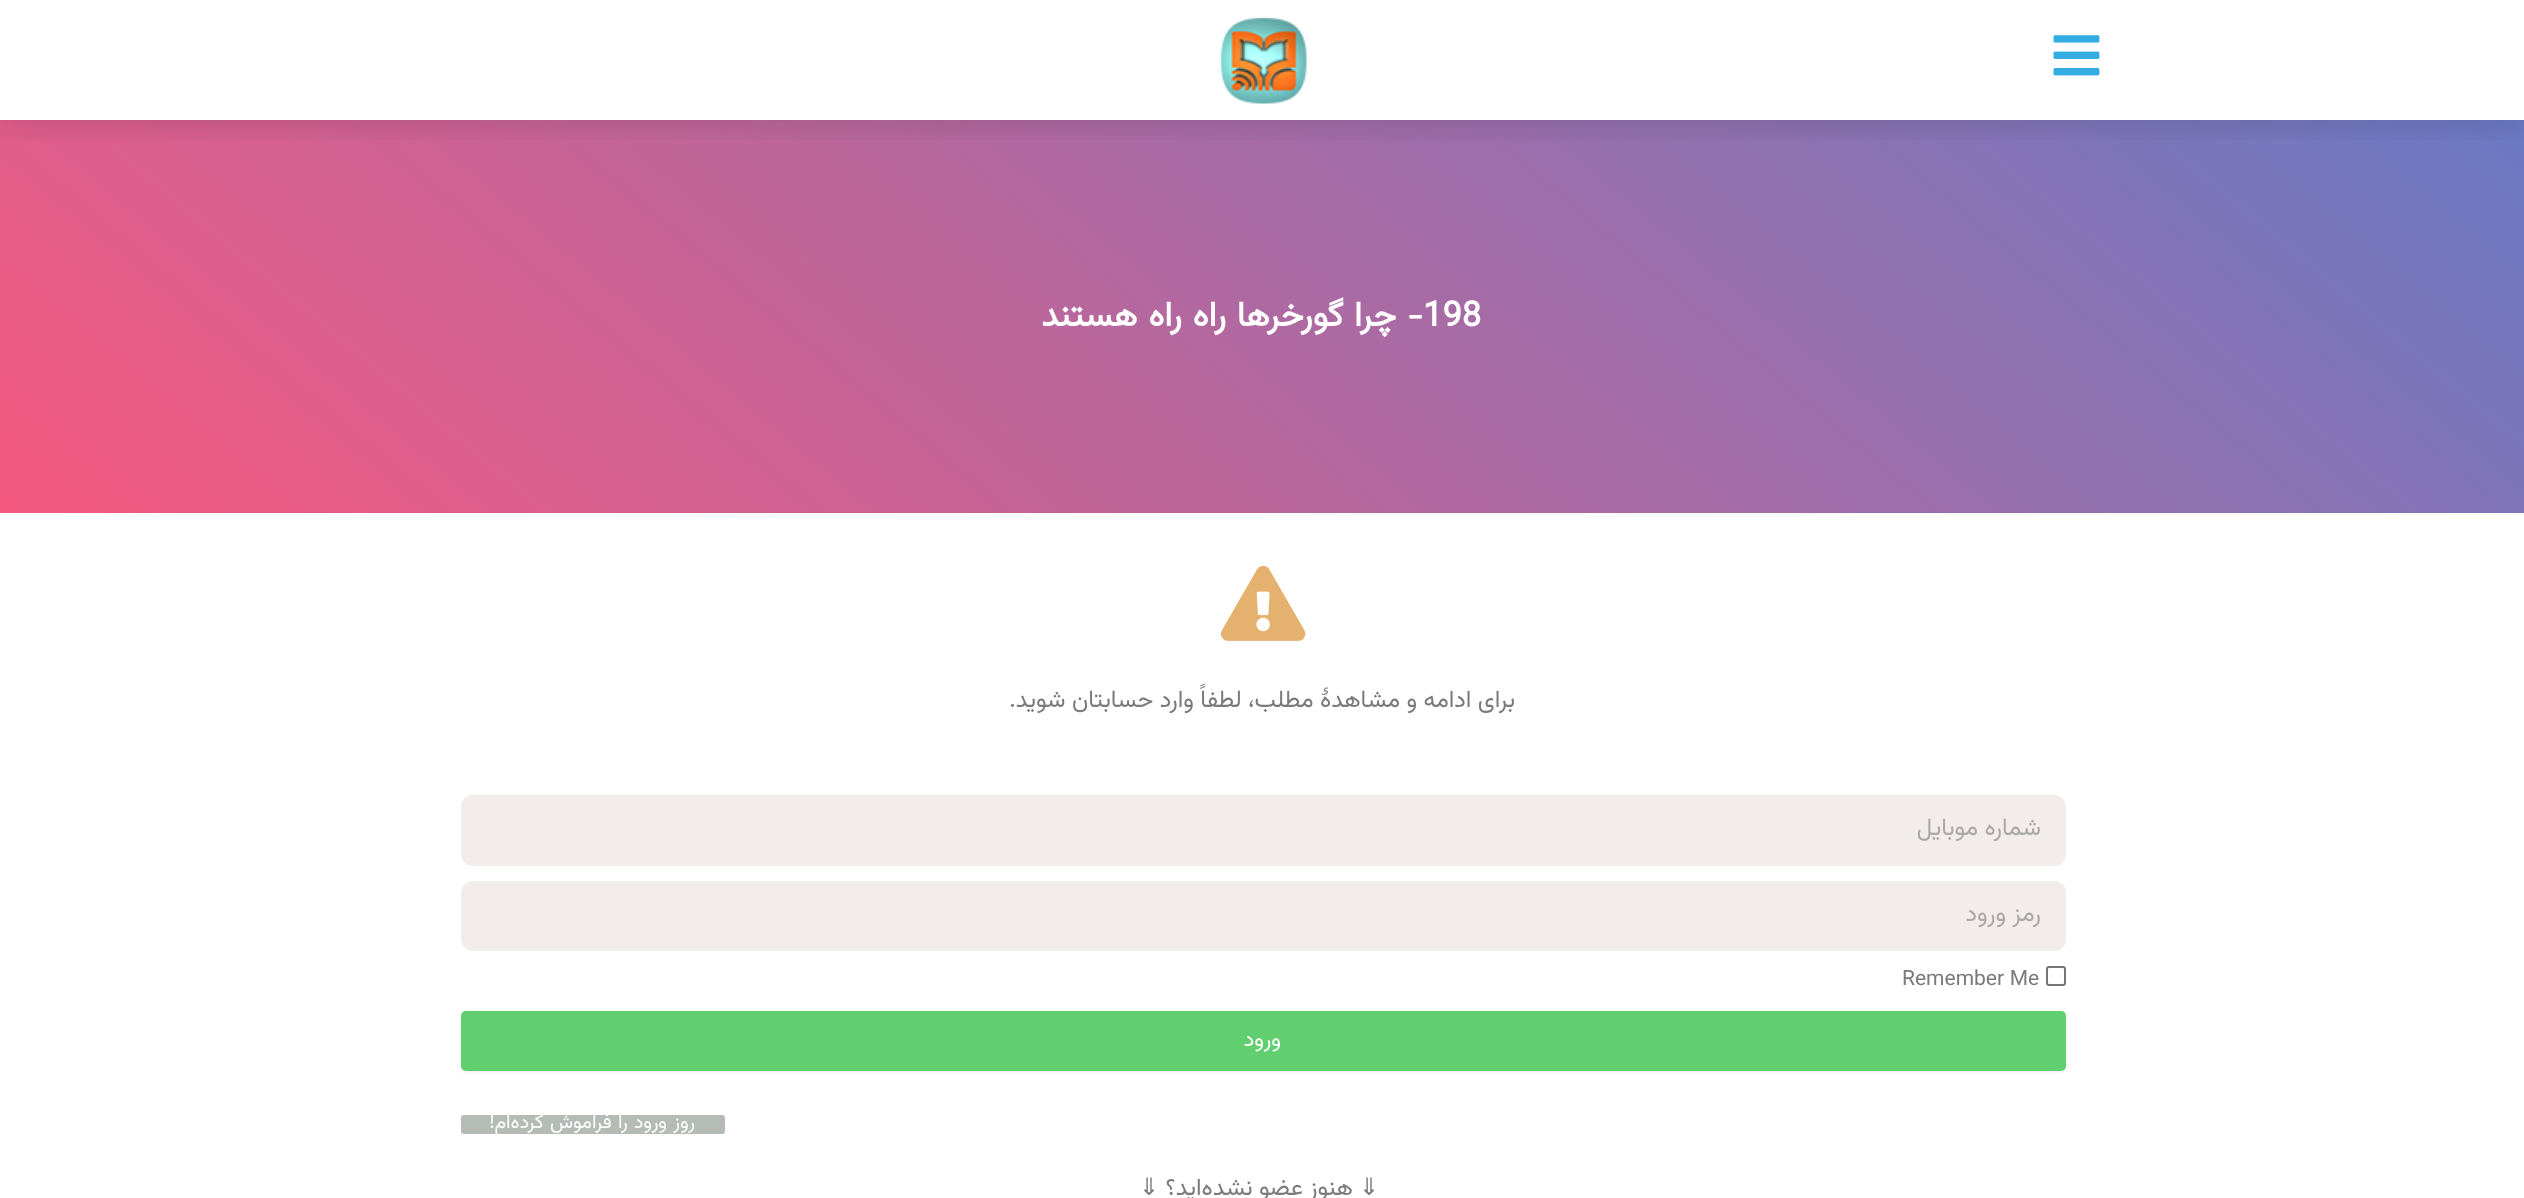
(async () => {
    const canvas = document.querySelector("canvas");
    canvas.width = 2524;
    canvas.height = 1198;
    const context = canvas.getContext("2d");
    context.miterLimit = 4;
    context.fontKerning = "normal";
    function write(s, x, y, font, color) {
        context.font = font;
        context.fillStyle = color;
        context.fillText(s, x, y);
    }
    function block(x, y, w, h, color) {
        context.fillStyle = color;
        context.fillRect(x, y, w, h);
    }
    function card(x, y, w, h, r, color) {
        context.fillStyle = color;
        context.beginPath();
        context.roundRect(x, y, w, h, r);
        context.fill();
    }
    async function photo(src, x, y, w, h) {
        const img = new Image();
        img.src = src;
        await img.decode();
        context.drawImage(img, x, y, w, h);
    }
    let gradient;

    block(0, 0, 2524, 1198, "rgb(255, 255, 255)");
    gradient = context.createLinearGradient(1881, -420, 644, 1053);
    gradient.addColorStop(0, "rgb(106, 122, 195)");
    gradient.addColorStop(1, "rgb(245, 88, 127)");
    context.fillStyle = gradient;
    context.fillRect(0, 120, 2524, 393);
    context.save();
    context.beginPath();
    context.rect(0, 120, 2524, 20);
    context.clip();
    context.fillStyle = "rgba(0, 0, 0, 0.15)";
    context.filter = "blur(18px)";
    context.beginPath();
    context.rect(0, 0, 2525, 120);
    context.fill();
    context.filter = "none";
    context.restore();
    await photo("media/1.png", 2053, 35, 47, 41);
    await photo("media/2.png", 1220, 17, 87, 87);
    write("198", 1423, 326, "bold 34.5px Vazirmatn", "rgb(255, 255, 255)");
    context.wordSpacing = "1.5px";
    context.direction = "rtl";
    write("- چرا گورخرها راه راه هستند", 1423, 326, "bold 34.5px Vazirmatn", "rgb(255, 255, 255)");
    await photo("media/3.png", 1220, 565, 86, 76);
    context.wordSpacing = "0px";
    write("برای ادامه و مشاهدۀ مطلب، لطفاً وارد حسابتان شوید.", 1515, 707, "24px Vazirmatn", "rgb(122, 122, 122)");
    card(461, 795, 1605, 71, 12, "rgb(242, 236, 235)");
    write("شماره موبایل", 2041, 835, "24px Vazirmatn", "rgb(170, 168, 167)");
    card(461, 881, 1605, 70, 12, "rgb(242, 236, 235)");
    write("رمز ورود", 2041, 921, "24px Vazirmatn", "rgb(170, 168, 167)");
    context.beginPath();
    context.roundRect(2047, 967, 18, 18, 2);
    context.strokeStyle = "rgb(118, 118, 118)";
    context.lineWidth = 2;
    context.stroke();
    context.direction = "ltr";
    write("Remember Me", 1902, 985, "21px Vazirmatn", "rgb(122, 122, 122)");
    context.fillStyle = "rgba(0, 0, 0, 0.05)";
    context.filter = "blur(1.5px)";
    context.beginPath();
    context.roundRect(461, 1013, 1605, 60, 5);
    context.fill();
    context.filter = "none";
    card(461, 1011, 1605, 60, 5, "rgb(97, 206, 112)");
    context.direction = "rtl";
    write("ورود", 1281, 1046, "22px Vazirmatn", "rgb(255, 255, 255)");
    card(461, 1115, 264, 19, 3, "rgb(181, 188, 182)");
    context.wordSpacing = "1px";
    write("روز ورود را فراموش کرده‌ام!", 695, 1128, "19.5px Vazirmatn", "rgb(255, 255, 255)");
    context.wordSpacing = "0px";
    write("⇓", 1379, 1195, "24px DejaVu Sans", "rgb(122, 122, 122)");
    write("هنوز عضو نشده‌اید؟", 1353, 1195, "24px Vazirmatn", "rgb(122, 122, 122)");
    write("⇓", 1159, 1195, "24px DejaVu Sans", "rgb(122, 122, 122)");
})();
